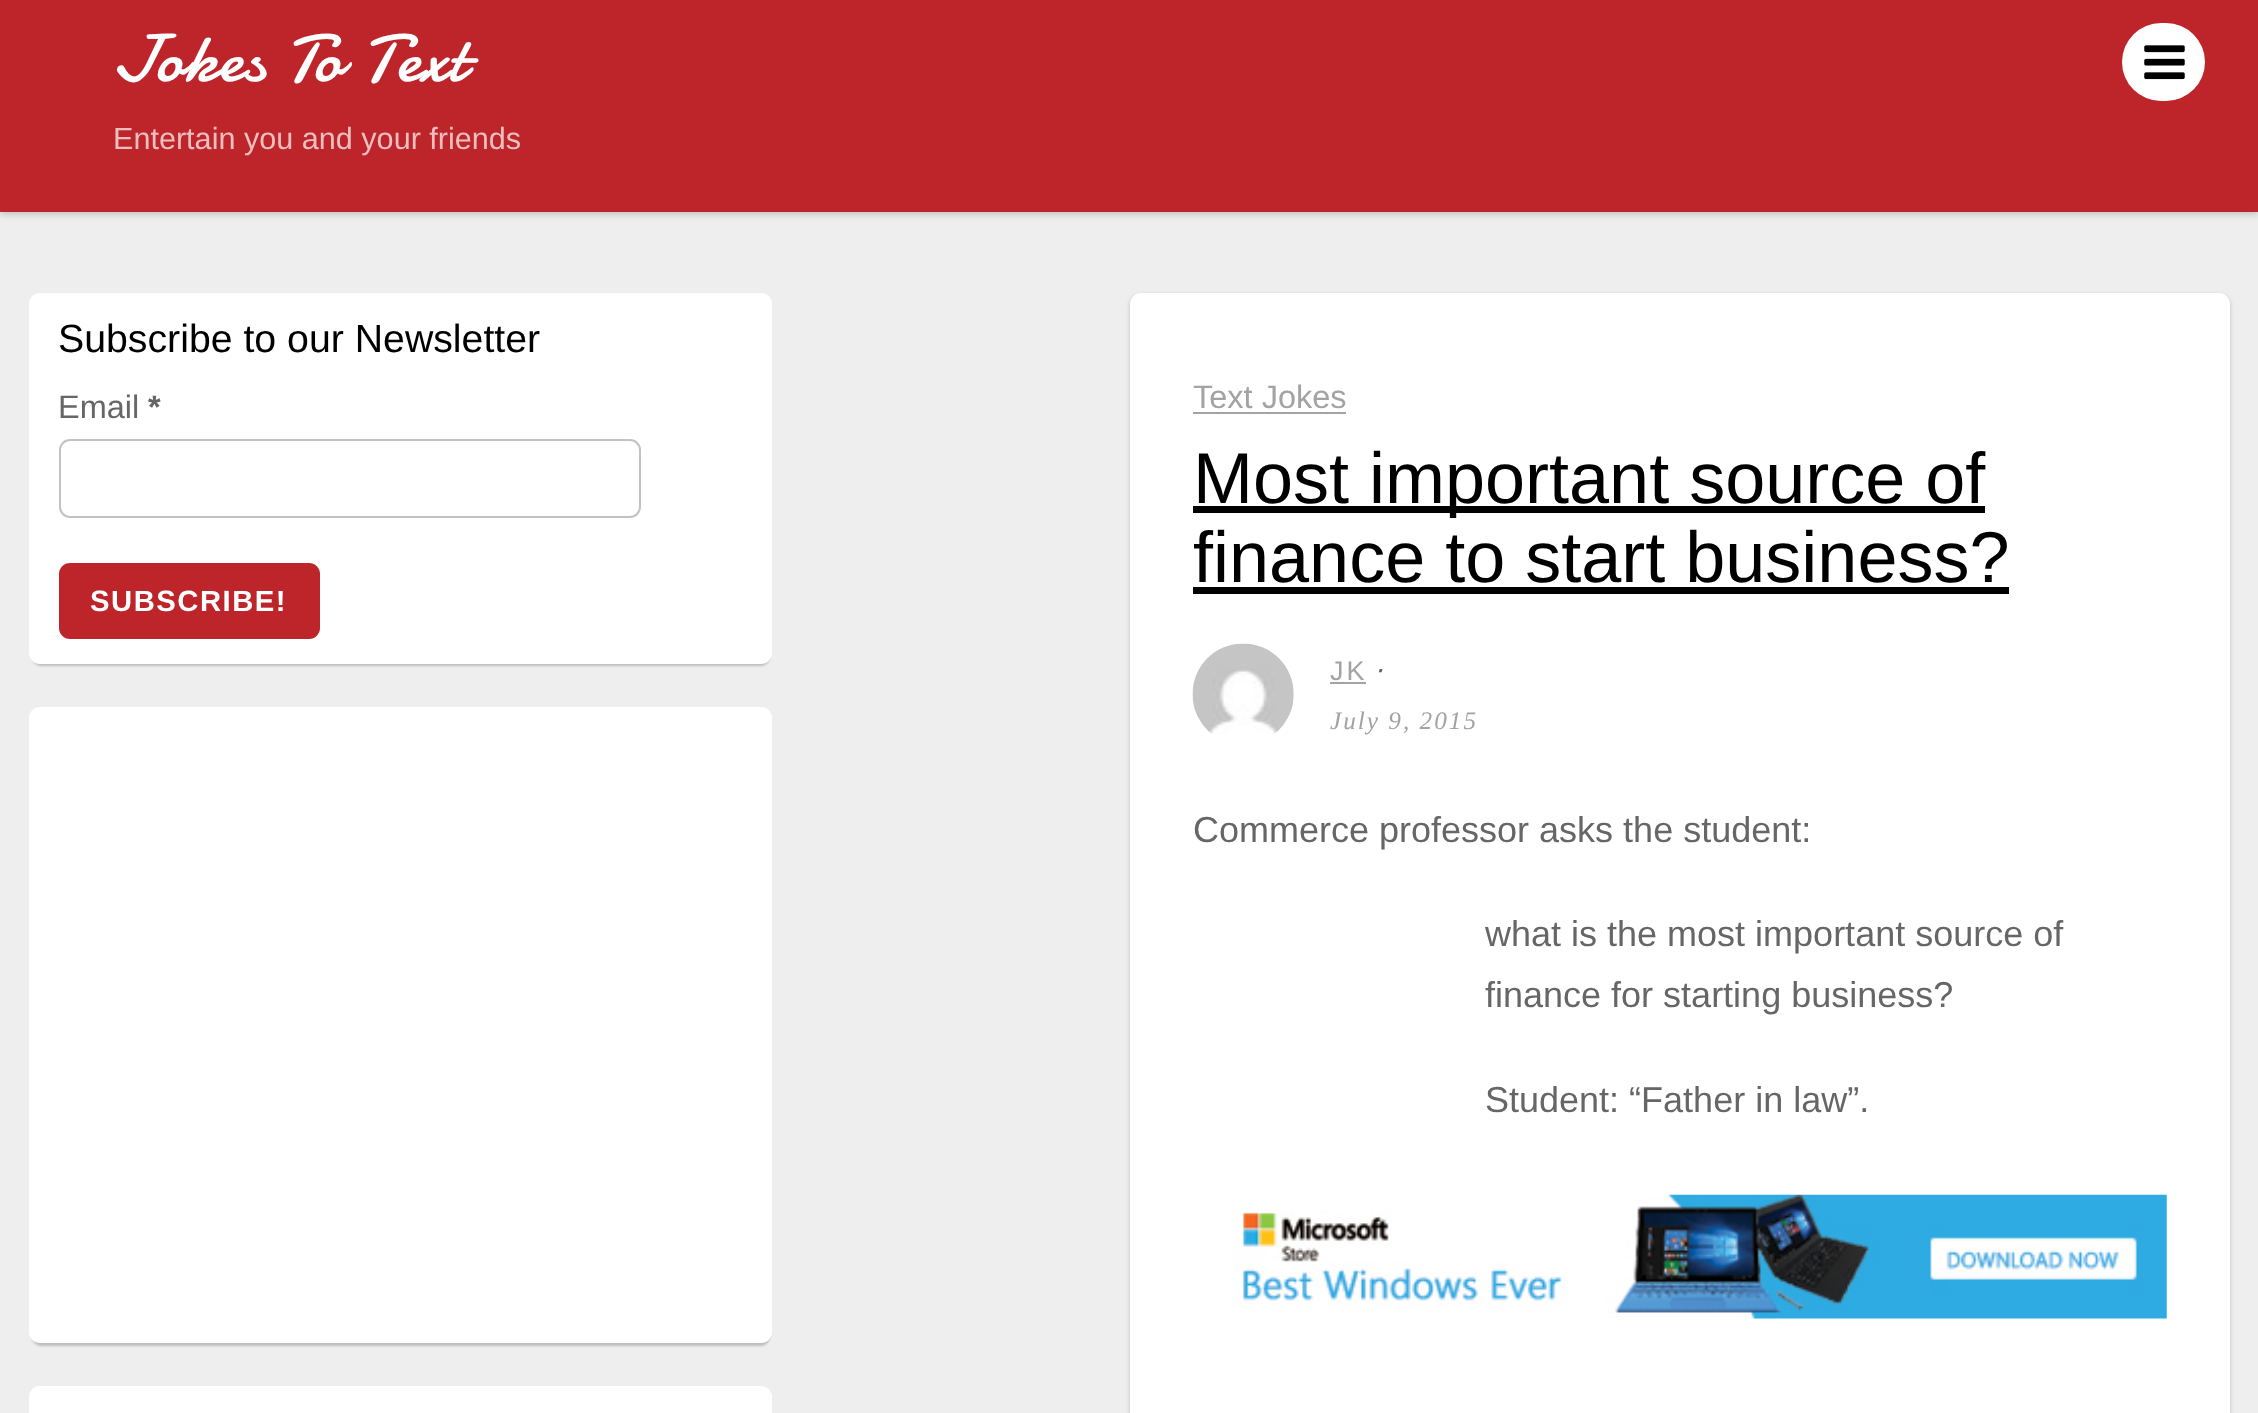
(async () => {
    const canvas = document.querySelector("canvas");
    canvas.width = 2258;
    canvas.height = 1413;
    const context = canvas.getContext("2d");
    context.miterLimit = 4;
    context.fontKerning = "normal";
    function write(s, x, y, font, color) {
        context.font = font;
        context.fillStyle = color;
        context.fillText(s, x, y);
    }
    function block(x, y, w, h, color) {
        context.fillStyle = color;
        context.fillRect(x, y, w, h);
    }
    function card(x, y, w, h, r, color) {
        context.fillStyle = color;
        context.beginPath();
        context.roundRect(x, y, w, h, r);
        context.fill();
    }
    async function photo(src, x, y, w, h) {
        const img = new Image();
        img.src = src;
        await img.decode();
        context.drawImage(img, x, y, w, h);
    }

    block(0, 0, 2258, 1413, "rgb(239, 238, 238)");
    context.fillStyle = "rgba(0, 0, 0, 0.2)";
    context.filter = "blur(3.5px)";
    context.beginPath();
    context.rect(0, 2, 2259, 212);
    context.fill();
    context.filter = "none";
    block(0, 0, 2258, 212, "rgb(190, 37, 42)");
    context.letterSpacing = "2px";
    write("Jokes To Text", 113, 81, "67.5px Damion", "rgb(255, 255, 255)");
    context.letterSpacing = "0px";
    write("Entertain you and your friends", 113, 149, "30.6px Liberation Sans", "rgb(236, 190, 191)");
    card(2122, 23, 83, 78, 39, "rgb(255, 255, 255)");
    await photo("media/1.png", 2144, 45, 41, 35);
    context.fillStyle = "rgba(0, 0, 0, 0.2)";
    context.filter = "blur(1px)";
    context.beginPath();
    context.roundRect(32, 299, 738, 367, 9);
    context.fill();
    context.filter = "none";
    card(29, 293, 743, 371, 11, "rgb(255, 255, 255)");
    write("Subscribe to our Newsletter", 58, 352, "39.25px Liberation Sans", "rgb(0, 0, 0)");
    write("Email", 58, 418, "32.5px Liberation Sans", "rgb(102, 102, 102)");
    write("*", 148, 418, "bold 32.5px Liberation Sans", "rgb(102, 102, 102)");
    context.beginPath();
    context.roundRect(60, 440, 580, 77, 10);
    context.strokeStyle = "rgb(194, 194, 194)";
    context.lineWidth = 2;
    context.stroke();
    card(59, 563, 261, 76, 11, "rgb(190, 37, 42)");
    context.letterSpacing = "1.5px";
    write("SUBSCRIBE!", 90, 611, "bold 29.25px Liberation Sans", "rgb(255, 255, 255)");
    context.fillStyle = "rgba(0, 0, 0, 0.2)";
    context.filter = "blur(1px)";
    context.beginPath();
    context.roundRect(32, 713, 738, 633, 9);
    context.fill();
    context.filter = "none";
    card(29, 707, 743, 636, 11, "rgb(255, 255, 255)");
    card(29, 1386, 743, 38, 11, "rgb(255, 255, 255)");
    context.fillStyle = "rgba(0, 0, 0, 0.2)";
    context.filter = "blur(2px)";
    context.beginPath();
    context.roundRect(1130, 295, 1100, 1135, 11);
    context.fill();
    context.filter = "none";
    card(1130, 293, 1100, 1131, 11, "rgb(255, 255, 255)");
    context.letterSpacing = "0px";
    write("Text Jokes", 1193, 408, "32.5px Liberation Sans", "rgb(163, 163, 163)");
    block(1193, 412, 153, 2, "rgb(163, 163, 163)");
    block(1193, 506, 792, 7, "rgb(0, 0, 0)");
    write("Most important source of", 1193, 503, "72px Liberation Sans", "rgb(0, 0, 0)");
    write("finance to start business?", 1193, 582, "72px Liberation Sans", "rgb(0, 0, 0)");
    block(1193, 587, 816, 7, "rgb(0, 0, 0)");
    await photo("media/2.png", 1192, 643, 102, 91);
    context.letterSpacing = "3px";
    write("JK", 1330, 680, "27px Liberation Sans", "rgb(163, 163, 163)");
    block(1330, 682, 36, 2, "rgb(163, 163, 163)");
    context.letterSpacing = "0px";
    write("⋅", 1374, 680, "italic 27px DejaVu Sans", "rgb(102, 102, 102)");
    context.letterSpacing = "2px";
    write("July 9, 2015", 1330, 729, "italic 25.25px Liberation Serif", "rgb(163, 163, 163)");
    context.letterSpacing = "0px";
    write("Commerce professor asks the student:", 1193, 842, "36px Liberation Sans", "rgb(102, 102, 102)");
    write("what is the most important source of", 1485, 946, "36px Liberation Sans", "rgb(102, 102, 102)");
    write("finance for starting business?", 1485, 1007, "36px Liberation Sans", "rgb(102, 102, 102)");
    write("Student: “Father in law”.", 1485, 1112, "36px Liberation Sans", "rgb(102, 102, 102)");
    await photo("media/3.png", 1234, 1194, 933, 125);
})();
